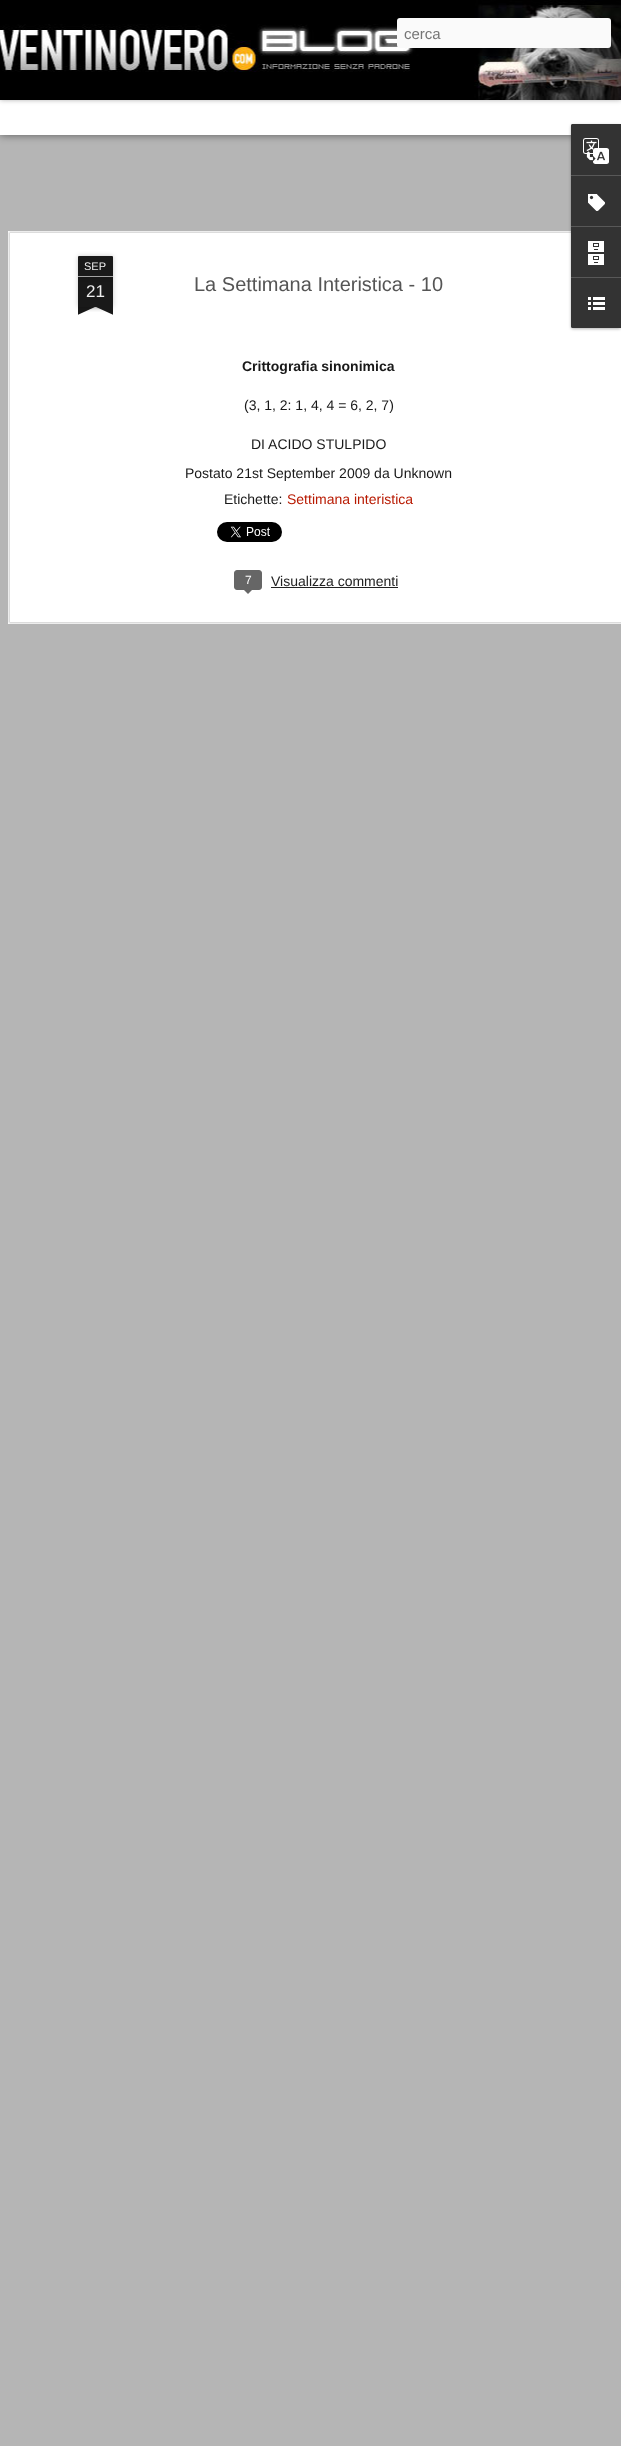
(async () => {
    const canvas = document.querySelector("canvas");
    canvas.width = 621;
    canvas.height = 2446;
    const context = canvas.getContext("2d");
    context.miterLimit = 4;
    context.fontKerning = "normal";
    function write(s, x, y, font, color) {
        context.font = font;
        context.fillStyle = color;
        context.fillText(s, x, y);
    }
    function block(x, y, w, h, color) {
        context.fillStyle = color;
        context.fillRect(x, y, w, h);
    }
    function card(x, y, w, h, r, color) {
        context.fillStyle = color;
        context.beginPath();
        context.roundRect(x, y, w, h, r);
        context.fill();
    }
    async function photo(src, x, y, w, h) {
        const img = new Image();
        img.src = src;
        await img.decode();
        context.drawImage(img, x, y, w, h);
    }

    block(0, 0, 621, 2446, "rgb(181, 181, 181)");
    context.fillStyle = "rgba(0, 0, 0, 0.5)";
    context.filter = "blur(4px)";
    context.beginPath();
    context.rect(0, 100, 621, 35);
    context.fill();
    context.filter = "none";
    block(0, 100, 621, 35, "rgb(255, 255, 255)");
    context.fillStyle = "rgba(0, 0, 0, 0.3)";
    context.filter = "blur(2.5px)";
    context.beginPath();
    context.rect(0, 0, 621, 100);
    context.fill();
    context.filter = "none";
    await photo("media/1.png", 0, 0, 621, 100);
    card(397, 18, 214, 30, 3, "rgb(250, 250, 250)");
    write("cerca", 404, 39, "15px Liberation Sans", "rgb(117, 117, 117)");
    block(8, 231, 613, 393, "rgb(255, 255, 255)");
    await photo("media/6.png", 8, 231, 613, 393);
    context.fillStyle = "rgba(0, 0, 0, 0.3)";
    context.filter = "blur(1.5px)";
    context.beginPath();
    context.roundRect(571, 125, 50, 204, 2);
    context.fill();
    context.filter = "none";
    context.fillStyle = "rgb(51, 51, 51)";
    context.beginPath();
    context.roundRect(571, 124, 50, 204, [2, 0, 0, 2]);
    context.fill();
    context.beginPath();
    context.roundRect(571, 124, 50, 51, [2, 0, 0, 0]);
    context.fill();
    await photo("media/2.png", 583, 138, 26, 26);
    block(571, 175, 50, 1, "rgb(88, 88, 88)");
    await photo("media/3.png", 588, 194, 17, 17);
    block(571, 226, 50, 1, "rgb(88, 88, 88)");
    await photo("media/4.png", 588, 241, 16, 24);
    context.fillStyle = "rgb(51, 51, 51)";
    context.beginPath();
    context.roundRect(571, 277, 50, 51, [0, 0, 0, 2]);
    context.fill();
    block(571, 277, 50, 1, "rgb(88, 88, 88)");
    await photo("media/5.png", 588, 297, 17, 13);
    context.fillStyle = "rgba(0, 0, 0, 0.2)";
    context.filter = "blur(2.5px)";
    context.beginPath();
    context.rect(78, 277, 35, 30);
    context.fill();
    context.filter = "none";
    block(78, 277, 35, 30, "rgb(25, 25, 25)");
    context.fillStyle = "rgba(0, 0, 0, 0.2)";
    context.filter = "blur(2.5px)";
    context.beginPath();
    context.roundRect(78, 256, 35, 21, 1);
    context.fill();
    context.filter = "none";
    context.fillStyle = "rgb(25, 25, 25)";
    context.beginPath();
    context.roundRect(78, 256, 35, 21, [1, 1, 0, 0]);
    context.fill();
    block(78, 276, 35, 1, "rgb(163, 163, 163)");
    write("SEP", 84, 270, "11px Liberation Sans", "rgb(238, 238, 238)");
    write("21", 86, 297, "17px Liberation Sans", "rgb(238, 238, 238)");
    context.save();
    context.beginPath();
    context.rect(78, 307, 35, 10);
    context.clip();
    context.fillStyle = "rgba(0, 0, 0, 0.2)";
    context.filter = "blur(2.5px)";
    context.beginPath();
    context.rect(69, 297, 50, 10);
    context.fill();
    context.filter = "none";
    context.restore();
    context.save();
    context.beginPath();
    context.rect(78, 307, 35, 10);
    context.clip();
    context.fillStyle = "rgb(25, 25, 25)";
    context.beginPath();
    context.moveTo(69, 308);
    context.lineTo(115, 287);
    context.lineTo(119, 296);
    context.lineTo(73, 317);
    context.closePath();
    context.fill();
    context.restore();
    context.save();
    context.beginPath();
    context.rect(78, 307, 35, 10);
    context.clip();
    context.fillStyle = "rgba(0, 0, 0, 0.2)";
    context.filter = "blur(2.5px)";
    context.beginPath();
    context.rect(72, 297, 50, 10);
    context.fill();
    context.filter = "none";
    context.restore();
    context.save();
    context.beginPath();
    context.rect(78, 307, 35, 10);
    context.clip();
    context.fillStyle = "rgb(25, 25, 25)";
    context.beginPath();
    context.moveTo(76, 287);
    context.lineTo(122, 308);
    context.lineTo(118, 317);
    context.lineTo(72, 296);
    context.closePath();
    context.fill();
    context.restore();
    write("La Settimana Interistica - 10", 194, 291, "20px Liberation Sans", "rgb(85, 85, 85)");
    write("Crittografia sinonimica", 242, 371, "bold 14px Liberation Sans", "rgb(25, 25, 25)");
    write("(3, 1, 2: 1, 4, 4 = 6, 2, 7)", 244, 410, "14px Liberation Sans", "rgb(25, 25, 25)");
    write("DI ACIDO STULPIDO", 251, 449, "14px Liberation Sans", "rgb(25, 25, 25)");
    write("Postato 21st September 2009 da Unknown", 185, 478, "14px Liberation Sans", "rgb(25, 25, 25)");
    write("Etichette:", 224, 504, "14px Liberation Sans", "rgb(25, 25, 25)");
    write("Settimana interistica", 287, 504, "14px Liberation Sans", "rgb(184, 25, 0)");
    await photo("media/7.png", 217, 522, 65, 20);
    context.fillStyle = "rgb(102, 102, 102)";
    context.beginPath();
    context.roundRect(234.5, 570.5, 27, 19, 2.5);
    context.fill();
    context.strokeStyle = "rgb(102, 102, 102)";
    context.stroke();
    write("7", 245, 584, "12px Liberation Sans", "rgb(255, 255, 255)");
    context.fillStyle = "rgb(102, 102, 102)";
    context.beginPath();
    context.moveTo(243, 589);
    context.lineTo(253, 589);
    context.lineTo(248, 594);
    context.closePath();
    context.fill();
    write("Visualizza commenti", 271, 586, "14px Liberation Sans", "rgb(34, 34, 34)");
    block(271, 587, 127, 1, "rgb(34, 34, 34)");
})();
